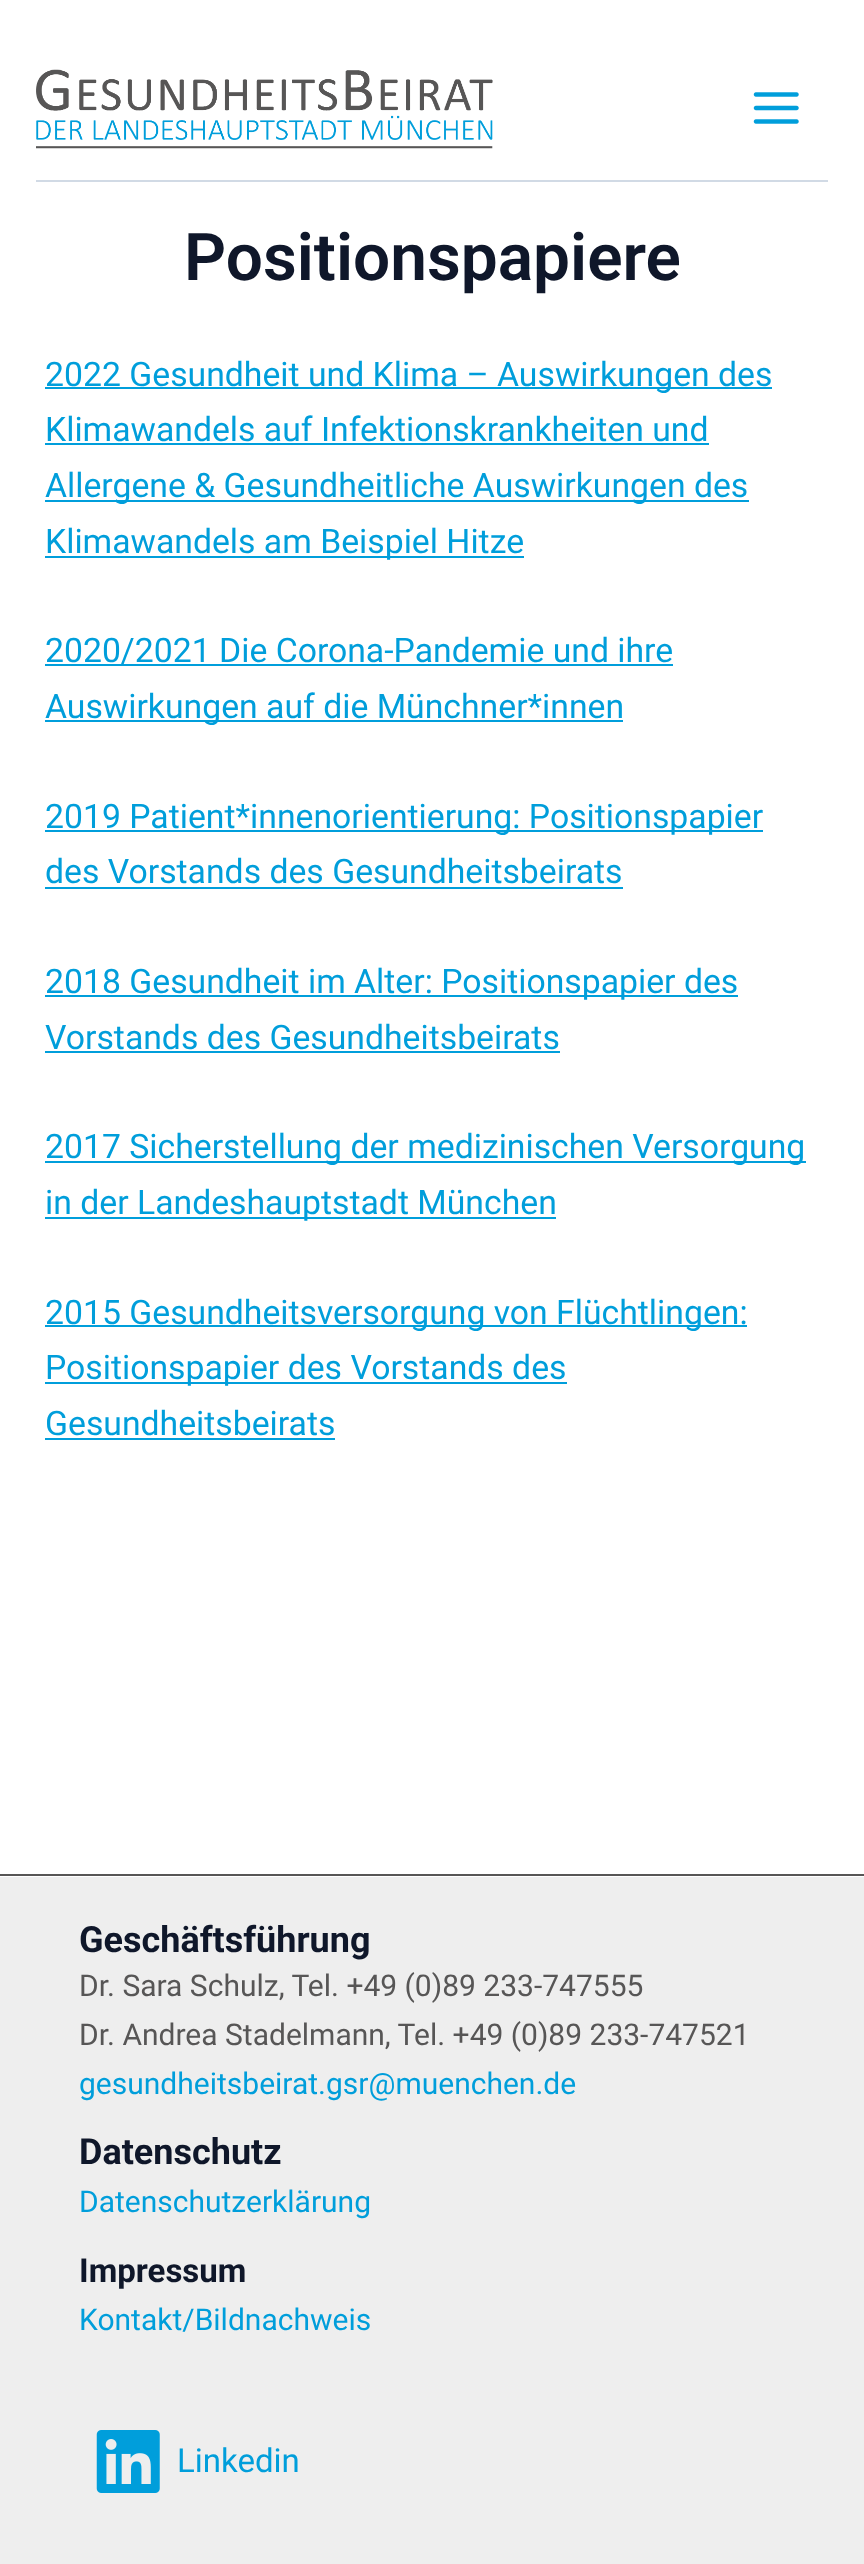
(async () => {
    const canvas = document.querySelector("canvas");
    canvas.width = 864;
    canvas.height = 2564;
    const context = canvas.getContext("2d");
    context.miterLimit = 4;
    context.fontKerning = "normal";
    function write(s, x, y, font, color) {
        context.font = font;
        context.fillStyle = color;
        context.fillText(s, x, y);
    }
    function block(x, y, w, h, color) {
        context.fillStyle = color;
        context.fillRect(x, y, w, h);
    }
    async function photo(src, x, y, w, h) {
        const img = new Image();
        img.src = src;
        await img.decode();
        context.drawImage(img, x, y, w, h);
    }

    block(0, 0, 864, 2564, "rgb(255, 255, 255)");
    block(36, 180, 792, 2, "rgb(209, 218, 229)");
    await photo("media/1.png", 36, 69, 457, 80);
    await photo("media/2.png", 753, 92, 46, 32);
    write("Positionspapiere", 184, 280, "600 65.75px Roboto", "rgb(15, 23, 42)");
    block(45, 387, 727, 2, "rgb(0, 158, 219)");
    write("2022 Gesundheit und Klima – Auswirkungen des", 45, 386, "33.75px Roboto", "rgb(0, 158, 219)");
    write("Klimawandels auf Infektionskrankheiten und", 45, 441, "33.75px Roboto", "rgb(0, 158, 219)");
    block(45, 443, 664, 2, "rgb(0, 158, 219)");
    block(45, 500, 704, 2, "rgb(0, 158, 219)");
    write("Allergene & Gesundheitliche Auswirkungen des", 45, 497, "33.75px Roboto", "rgb(0, 158, 219)");
    block(45, 556, 479, 2, "rgb(0, 158, 219)");
    write("Klimawandels am Beispiel Hitze", 45, 553, "33.75px Roboto", "rgb(0, 158, 219)");
    block(45, 664, 628, 2, "rgb(0, 158, 219)");
    write("2020/2021 Die Corona-Pandemie und ihre", 45, 662, "33.75px Roboto", "rgb(0, 158, 219)");
    block(45, 720, 578, 2, "rgb(0, 158, 219)");
    write("Auswirkungen auf die Münchner*innen", 45, 718, "33.75px Roboto", "rgb(0, 158, 219)");
    block(45, 830, 718, 2, "rgb(0, 158, 219)");
    write("2019 Patient*innenorientierung: Positionspapier", 45, 828, "33.75px Roboto", "rgb(0, 158, 219)");
    write("des Vorstands des Gesundheitsbeirats", 45, 883, "33.75px Roboto", "rgb(0, 158, 219)");
    block(45, 887, 578, 2, "rgb(0, 158, 219)");
    block(45, 995, 693, 2, "rgb(0, 158, 219)");
    write("2018 Gesundheit im Alter: Positionspapier des", 45, 993, "33.75px Roboto", "rgb(0, 158, 219)");
    write("Vorstands des Gesundheitsbeirats", 45, 1049, "33.75px Roboto", "rgb(0, 158, 219)");
    block(45, 1051, 515, 2, "rgb(0, 158, 219)");
    block(45, 1161, 761, 2, "rgb(0, 158, 219)");
    write("2017 Sicherstellung der medizinischen Versorgung", 45, 1158, "33.75px Roboto", "rgb(0, 158, 219)");
    block(45, 1217, 511, 2, "rgb(0, 158, 219)");
    write("in der Landeshauptstadt München", 45, 1214, "33.75px Roboto", "rgb(0, 158, 219)");
    block(45, 1325, 702, 2, "rgb(0, 158, 219)");
    write("2015 Gesundheitsversorgung von Flüchtlingen:", 45, 1324, "33.75px Roboto", "rgb(0, 158, 219)");
    block(45, 1382, 522, 2, "rgb(0, 158, 219)");
    write("Positionspapier des Vorstands des", 45, 1379, "33.75px Roboto", "rgb(0, 158, 219)");
    write("Gesundheitsbeirats", 45, 1435, "33.75px Roboto", "rgb(0, 158, 219)");
    block(45, 1438, 290, 2, "rgb(0, 158, 219)");
    block(0, 1877, 864, 687, "rgb(238, 238, 238)");
    block(0, 1874, 864, 2, "rgb(87, 86, 86)");
    write("Geschäftsführung", 79, 1952, "bold 36px Roboto", "rgb(15, 23, 42)");
    write("Dr. Sara Schulz, Tel. +49 (0)89 233-747555", 79, 1996, "30px Roboto", "rgb(87, 86, 86)");
    write("Dr. Andrea Stadelmann, Tel. +49 (0)89 233-747521", 79, 2045, "30px Roboto", "rgb(87, 86, 86)");
    write("gesundheitsbeirat.gsr@muenchen.de", 79, 2094, "30px Roboto", "rgb(0, 158, 219)");
    write("Datenschutz", 79, 2164, "bold 36px Roboto", "rgb(15, 23, 42)");
    write("Datenschutzerklärung", 79, 2212, "30px Roboto", "rgb(0, 158, 219)");
    write("Impressum", 79, 2282, "bold 33px Roboto", "rgb(15, 23, 42)");
    write("Kontakt/Bildnachweis", 79, 2330, "30px Roboto", "rgb(0, 158, 219)");
    await photo("media/3.png", 96, 2430, 64, 63);
    write("Linkedin", 177, 2472, "33px Roboto", "rgb(0, 158, 219)");
})();
